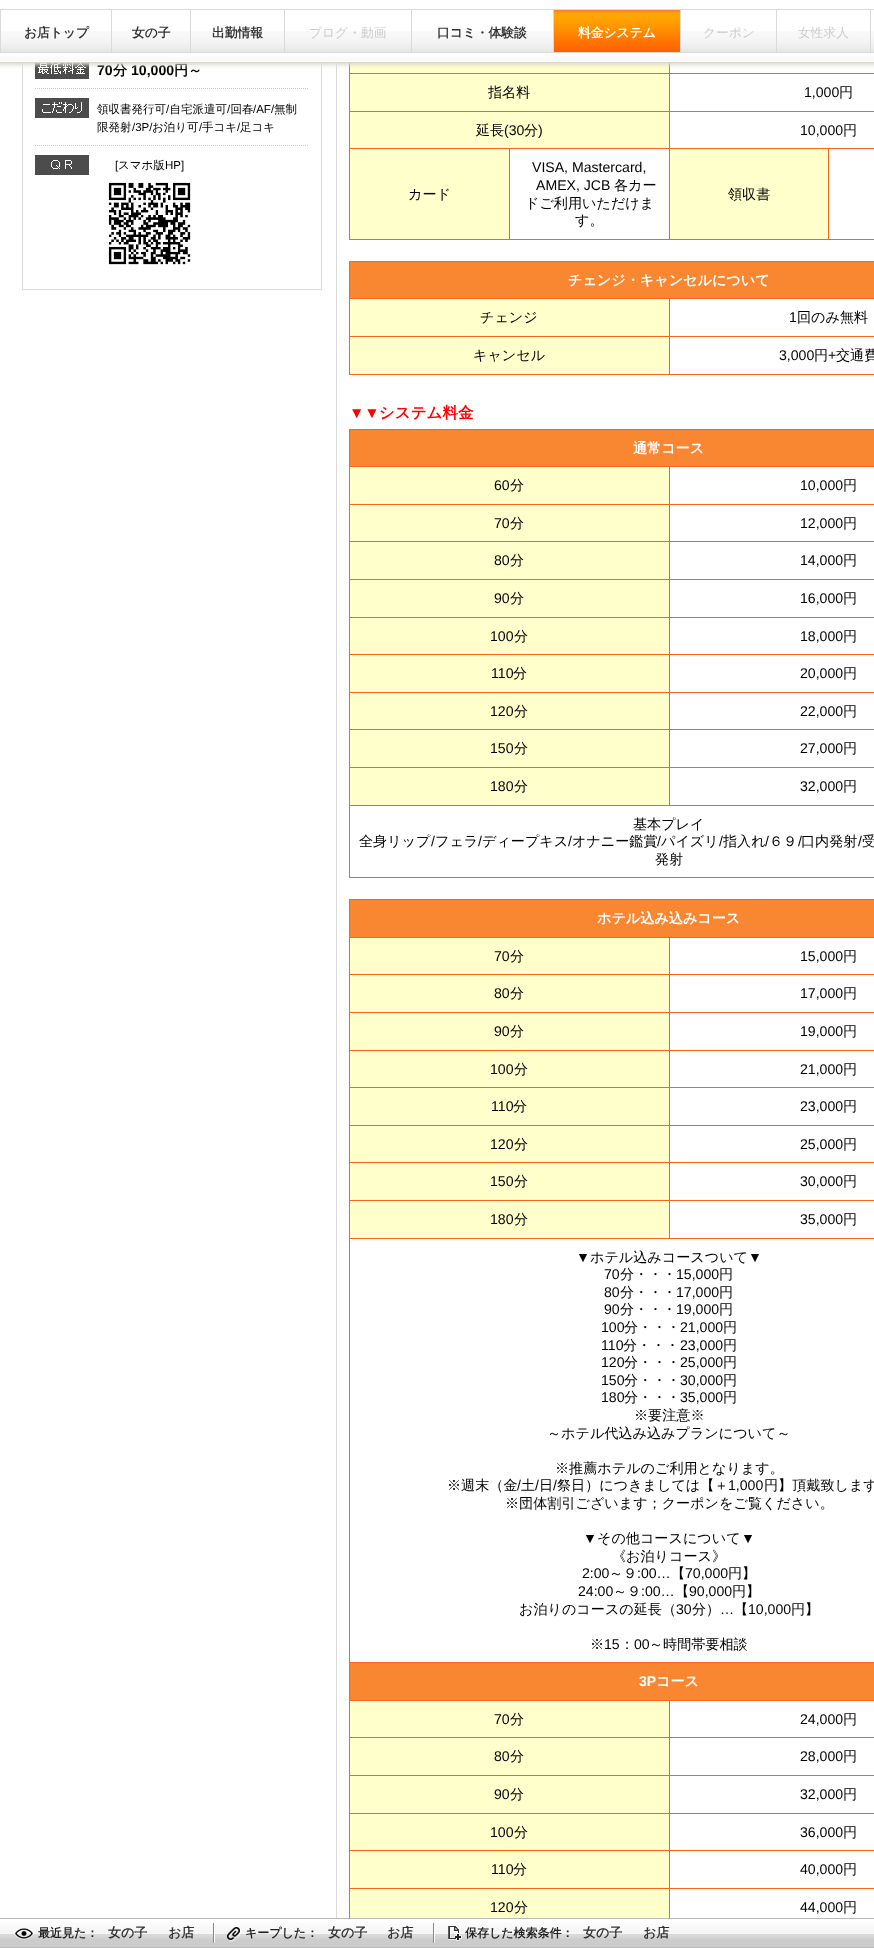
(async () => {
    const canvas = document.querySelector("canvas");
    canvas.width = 874;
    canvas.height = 1948;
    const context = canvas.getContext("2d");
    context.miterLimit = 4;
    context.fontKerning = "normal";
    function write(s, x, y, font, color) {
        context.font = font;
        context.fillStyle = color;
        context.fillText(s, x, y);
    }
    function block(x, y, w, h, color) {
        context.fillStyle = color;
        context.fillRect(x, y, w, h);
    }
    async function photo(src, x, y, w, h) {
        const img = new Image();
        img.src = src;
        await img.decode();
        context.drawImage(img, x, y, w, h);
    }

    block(0, 0, 874, 1948, "rgb(255, 255, 255)");
    block(321, 63, 1, 227, "rgb(217, 217, 217)");
    block(22, 289, 300, 1, "rgb(217, 217, 217)");
    block(22, 63, 1, 227, "rgb(217, 217, 217)");
    await photo("media/4.png", 35, 63, 54, 16);
    write("70", 97, 75, "bold 14.1px Liberation Sans", "rgb(0, 0, 0)");
    write("分", 113, 75, "bold 14.1px WenQuanYi Zen Hei", "rgb(0, 0, 0)");
    write("10,000", 131, 75, "bold 14.1px Liberation Sans", "rgb(0, 0, 0)");
    write("円～", 174, 75, "bold 14.1px WenQuanYi Zen Hei", "rgb(0, 0, 0)");
    block(336, 63, 1, 1855, "rgb(217, 217, 217)");
    block(350, 63, 319, 10, "rgb(255, 255, 204)");
    block(669, 73, 205, 1, "rgb(251, 100, 28)");
    block(669, 111, 205, 1, "rgb(251, 100, 28)");
    block(828, 148, 46, 1, "rgb(251, 100, 28)");
    block(828, 239, 46, 1, "rgb(251, 100, 28)");
    block(828, 148, 1, 92, "rgb(251, 100, 28)");
    block(669, 148, 160, 1, "rgb(251, 100, 28)");
    block(669, 239, 160, 1, "rgb(251, 100, 28)");
    block(669, 148, 1, 92, "rgb(251, 100, 28)");
    block(509, 148, 161, 1, "rgb(251, 100, 28)");
    block(669, 111, 1, 38, "rgb(251, 100, 28)");
    block(349, 111, 321, 1, "rgb(251, 100, 28)");
    block(669, 73, 1, 39, "rgb(251, 100, 28)");
    block(349, 73, 321, 1, "rgb(251, 100, 28)");
    block(669, 63, 1, 11, "rgb(251, 100, 28)");
    block(509, 239, 161, 1, "rgb(251, 100, 28)");
    block(509, 148, 1, 92, "rgb(251, 100, 28)");
    block(349, 148, 161, 1, "rgb(251, 100, 28)");
    block(349, 239, 161, 1, "rgb(251, 100, 28)");
    block(349, 148, 1, 92, "rgb(251, 100, 28)");
    block(349, 111, 1, 38, "rgb(251, 100, 28)");
    block(349, 63, 1, 49, "rgb(251, 100, 28)");
    await photo("media/1.png", 0, 0, 874, 69);
    await photo("media/2.png", 1, 31, 873, 21);
    context.strokeStyle = "rgb(217, 217, 217)";
    context.strokeRect(0.5, 9.5, 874, 43);
    write("お店トップ", 24, 37, "bold 12.75px WenQuanYi Zen Hei", "rgb(51, 51, 51)");
    block(111, 10, 1, 42, "rgb(217, 217, 217)");
    write("女の子", 132, 37, "bold 12.75px WenQuanYi Zen Hei", "rgb(51, 51, 51)");
    block(190, 10, 1, 42, "rgb(217, 217, 217)");
    write("出勤情報", 212, 37, "bold 12.75px WenQuanYi Zen Hei", "rgb(51, 51, 51)");
    block(284, 10, 1, 42, "rgb(217, 217, 217)");
    write("ブログ・動画", 309, 37, "500 12.75px WenQuanYi Zen Hei", "rgb(204, 204, 204)");
    block(411, 10, 1, 42, "rgb(217, 217, 217)");
    write("口コミ・体験談", 437, 37, "bold 12.75px WenQuanYi Zen Hei", "rgb(51, 51, 51)");
    block(553, 10, 1, 42, "rgb(217, 217, 217)");
    await photo("media/3.png", 554, 10, 126, 42);
    write("料金システム", 578, 37, "bold 12.75px WenQuanYi Zen Hei", "rgb(255, 255, 255)");
    block(680, 10, 1, 42, "rgb(217, 217, 217)");
    write("クーポン", 703, 37, "500 12.75px WenQuanYi Zen Hei", "rgb(204, 204, 204)");
    block(776, 10, 1, 42, "rgb(217, 217, 217)");
    write("女性求人", 798, 37, "500 12.75px WenQuanYi Zen Hei", "rgb(204, 204, 204)");
    block(870, 10, 1, 42, "rgb(217, 217, 217)");
    context.beginPath();
    context.moveTo(35, 88.5);
    context.lineTo(309, 88.5);
    context.strokeStyle = "rgb(201, 201, 201)";
    context.setLineDash([1, 1]);
    context.stroke();
    await photo("media/5.png", 35, 98, 54, 20);
    write("領収書発行可 自宅派遣可 回春", 97, 113, "500 11.5px WenQuanYi Zen Hei", "rgb(0, 0, 0)");
    write("/AF/", 253, 113, "11.5px Liberation Sans", "rgb(0, 0, 0)");
    write("無制", 274, 113, "500 11.5px WenQuanYi Zen Hei", "rgb(0, 0, 0)");
    write("/", 166, 113, "11.5px Liberation Sans", "rgb(0, 0, 0)");
    write("/", 227, 113, "11.5px Liberation Sans", "rgb(0, 0, 0)");
    write("限発射", 97, 131, "500 11.5px WenQuanYi Zen Hei", "rgb(0, 0, 0)");
    write("/3P/", 132, 131, "11.5px Liberation Sans", "rgb(0, 0, 0)");
    write("お泊り可 手コキ", 152, 131, "500 11.5px WenQuanYi Zen Hei", "rgb(0, 0, 0)");
    write("/", 237, 131, "11.5px Liberation Sans", "rgb(0, 0, 0)");
    write("足コキ", 240, 131, "500 11.5px WenQuanYi Zen Hei", "rgb(0, 0, 0)");
    write("/", 199, 131, "11.5px Liberation Sans", "rgb(0, 0, 0)");
    context.beginPath();
    context.moveTo(35, 145.5);
    context.lineTo(309, 145.5);
    context.stroke();
    await photo("media/6.png", 35, 155, 54, 20);
    write("[", 115, 169, "11.5px Liberation Sans", "rgb(0, 0, 0)");
    write("スマホ版", 118, 169, "500 11.5px WenQuanYi Zen Hei", "rgb(0, 0, 0)");
    write("HP]", 165, 169, "11.5px Liberation Sans", "rgb(0, 0, 0)");
    await photo("media/7.png", 108, 182, 83, 83);
    block(350, 74, 319, 37, "rgb(255, 255, 204)");
    write("指名料", 488, 97, "500 14.1px WenQuanYi Zen Hei", "rgb(0, 0, 0)");
    write("1,000", 804, 97, "14.1px Liberation Sans", "rgb(0, 0, 0)");
    write("円", 839, 97, "500 14.1px WenQuanYi Zen Hei", "rgb(0, 0, 0)");
    block(350, 112, 319, 36, "rgb(255, 255, 204)");
    write("延長", 476, 135, "500 14.1px WenQuanYi Zen Hei", "rgb(0, 0, 0)");
    write("(30", 504, 135, "14.1px Liberation Sans", "rgb(0, 0, 0)");
    write("分", 524, 135, "500 14.1px WenQuanYi Zen Hei", "rgb(0, 0, 0)");
    write(")", 538, 135, "14.1px Liberation Sans", "rgb(0, 0, 0)");
    write("10,000", 800, 135, "14.1px Liberation Sans", "rgb(0, 0, 0)");
    write("円", 843, 135, "500 14.1px WenQuanYi Zen Hei", "rgb(0, 0, 0)");
    block(350, 149, 159, 90, "rgb(255, 255, 204)");
    write("カード", 408, 199, "500 14.1px WenQuanYi Zen Hei", "rgb(0, 0, 0)");
    write("VISA, Mastercard,", 532, 172, "14.1px Liberation Sans", "rgb(0, 0, 0)");
    write("AMEX, JCB", 536, 190, "14.1px Liberation Sans", "rgb(0, 0, 0)");
    write("各カー", 614, 190, "500 14.1px WenQuanYi Zen Hei", "rgb(0, 0, 0)");
    write("ドご利用いただけま", 525, 208, "500 14.1px WenQuanYi Zen Hei", "rgb(0, 0, 0)");
    write("す。", 575, 225, "500 14.1px WenQuanYi Zen Hei", "rgb(0, 0, 0)");
    block(670, 149, 158, 90, "rgb(255, 255, 204)");
    write("領収書", 728, 199, "500 14.1px WenQuanYi Zen Hei", "rgb(0, 0, 0)");
    block(350, 262, 524, 36, "rgb(249, 134, 48)");
    block(349, 261, 525, 1, "rgb(251, 100, 28)");
    block(669, 298, 205, 1, "rgb(251, 100, 28)");
    block(669, 336, 205, 1, "rgb(251, 100, 28)");
    block(669, 374, 205, 1, "rgb(251, 100, 28)");
    block(669, 336, 1, 39, "rgb(251, 100, 28)");
    block(349, 336, 321, 1, "rgb(251, 100, 28)");
    block(669, 298, 1, 39, "rgb(251, 100, 28)");
    block(349, 298, 321, 1, "rgb(251, 100, 28)");
    block(349, 374, 321, 1, "rgb(251, 100, 28)");
    block(349, 336, 1, 39, "rgb(251, 100, 28)");
    block(349, 298, 1, 39, "rgb(251, 100, 28)");
    block(349, 261, 1, 38, "rgb(251, 100, 28)");
    write("チェンジ・キャンセルについて", 568, 285, "bold 14.1px WenQuanYi Zen Hei", "rgb(255, 255, 255)");
    block(350, 299, 319, 37, "rgb(255, 255, 204)");
    write("チェンジ", 480, 322, "500 14.1px WenQuanYi Zen Hei", "rgb(0, 0, 0)");
    write("1", 789, 322, "14.1px Liberation Sans", "rgb(0, 0, 0)");
    write("回のみ無料", 797, 322, "500 14.1px WenQuanYi Zen Hei", "rgb(0, 0, 0)");
    block(350, 337, 319, 37, "rgb(255, 255, 204)");
    write("キャンセル", 473, 360, "500 14.1px WenQuanYi Zen Hei", "rgb(0, 0, 0)");
    write("3,000", 779, 360, "14.1px Liberation Sans", "rgb(0, 0, 0)");
    write("円", 814, 360, "500 14.1px WenQuanYi Zen Hei", "rgb(0, 0, 0)");
    write("+", 828, 360, "14.1px Liberation Sans", "rgb(0, 0, 0)");
    write("交通費", 836, 360, "500 14.1px WenQuanYi Zen Hei", "rgb(0, 0, 0)");
    write("▼▼", 349, 418, "bold 15.5px Liberation Sans", "rgb(255, 0, 0)");
    write("システム料金", 379, 418, "bold 15.5px WenQuanYi Zen Hei", "rgb(255, 0, 0)");
    block(350, 430, 524, 36, "rgb(249, 134, 48)");
    block(349, 429, 525, 1, "rgb(251, 100, 28)");
    block(669, 466, 205, 1, "rgb(251, 100, 28)");
    block(669, 504, 205, 1, "rgb(251, 100, 28)");
    block(669, 541, 205, 1, "rgb(251, 100, 28)");
    block(669, 579, 205, 1, "rgb(251, 100, 28)");
    block(669, 617, 205, 1, "rgb(251, 100, 28)");
    block(669, 654, 205, 1, "rgb(251, 100, 28)");
    block(669, 692, 205, 1, "rgb(251, 100, 28)");
    block(669, 729, 205, 1, "rgb(251, 100, 28)");
    block(669, 767, 205, 1, "rgb(251, 100, 28)");
    block(349, 805, 525, 1, "rgb(251, 100, 28)");
    block(669, 767, 1, 39, "rgb(251, 100, 28)");
    block(349, 767, 321, 1, "rgb(251, 100, 28)");
    block(669, 729, 1, 39, "rgb(251, 100, 28)");
    block(349, 729, 321, 1, "rgb(251, 100, 28)");
    block(669, 692, 1, 38, "rgb(251, 100, 28)");
    block(349, 692, 321, 1, "rgb(251, 100, 28)");
    block(669, 654, 1, 39, "rgb(251, 100, 28)");
    block(349, 654, 321, 1, "rgb(251, 100, 28)");
    block(669, 617, 1, 38, "rgb(251, 100, 28)");
    block(349, 617, 321, 1, "rgb(251, 100, 28)");
    block(669, 579, 1, 39, "rgb(251, 100, 28)");
    block(349, 579, 321, 1, "rgb(251, 100, 28)");
    block(669, 541, 1, 39, "rgb(251, 100, 28)");
    block(349, 541, 321, 1, "rgb(251, 100, 28)");
    block(669, 504, 1, 38, "rgb(251, 100, 28)");
    block(349, 504, 321, 1, "rgb(251, 100, 28)");
    block(669, 466, 1, 39, "rgb(251, 100, 28)");
    block(349, 466, 321, 1, "rgb(251, 100, 28)");
    block(349, 877, 525, 1, "rgb(251, 100, 28)");
    block(349, 805, 1, 73, "rgb(251, 100, 28)");
    block(349, 767, 1, 39, "rgb(251, 100, 28)");
    block(349, 729, 1, 39, "rgb(251, 100, 28)");
    block(349, 692, 1, 38, "rgb(251, 100, 28)");
    block(349, 654, 1, 39, "rgb(251, 100, 28)");
    block(349, 617, 1, 38, "rgb(251, 100, 28)");
    block(349, 579, 1, 39, "rgb(251, 100, 28)");
    block(349, 541, 1, 39, "rgb(251, 100, 28)");
    block(349, 504, 1, 38, "rgb(251, 100, 28)");
    block(349, 466, 1, 39, "rgb(251, 100, 28)");
    block(349, 429, 1, 38, "rgb(251, 100, 28)");
    write("通常コース", 633, 453, "bold 14.1px WenQuanYi Zen Hei", "rgb(255, 255, 255)");
    block(350, 467, 319, 37, "rgb(255, 255, 204)");
    write("60", 494, 490, "14.1px Liberation Sans", "rgb(0, 0, 0)");
    write("分", 510, 490, "500 14.1px WenQuanYi Zen Hei", "rgb(0, 0, 0)");
    write("10,000", 800, 490, "14.1px Liberation Sans", "rgb(0, 0, 0)");
    write("円", 843, 490, "500 14.1px WenQuanYi Zen Hei", "rgb(0, 0, 0)");
    block(350, 505, 319, 36, "rgb(255, 255, 204)");
    write("70", 494, 528, "14.1px Liberation Sans", "rgb(0, 0, 0)");
    write("分", 510, 528, "500 14.1px WenQuanYi Zen Hei", "rgb(0, 0, 0)");
    write("12,000", 800, 528, "14.1px Liberation Sans", "rgb(0, 0, 0)");
    write("円", 843, 528, "500 14.1px WenQuanYi Zen Hei", "rgb(0, 0, 0)");
    block(350, 542, 319, 37, "rgb(255, 255, 204)");
    write("80", 494, 565, "14.1px Liberation Sans", "rgb(0, 0, 0)");
    write("分", 510, 565, "500 14.1px WenQuanYi Zen Hei", "rgb(0, 0, 0)");
    write("14,000", 800, 565, "14.1px Liberation Sans", "rgb(0, 0, 0)");
    write("円", 843, 565, "500 14.1px WenQuanYi Zen Hei", "rgb(0, 0, 0)");
    block(350, 580, 319, 37, "rgb(255, 255, 204)");
    write("90", 494, 603, "14.1px Liberation Sans", "rgb(0, 0, 0)");
    write("分", 510, 603, "500 14.1px WenQuanYi Zen Hei", "rgb(0, 0, 0)");
    write("16,000", 800, 603, "14.1px Liberation Sans", "rgb(0, 0, 0)");
    write("円", 843, 603, "500 14.1px WenQuanYi Zen Hei", "rgb(0, 0, 0)");
    block(350, 618, 319, 36, "rgb(255, 255, 204)");
    write("100", 490, 641, "14.1px Liberation Sans", "rgb(0, 0, 0)");
    write("分", 514, 641, "500 14.1px WenQuanYi Zen Hei", "rgb(0, 0, 0)");
    write("18,000", 800, 641, "14.1px Liberation Sans", "rgb(0, 0, 0)");
    write("円", 843, 641, "500 14.1px WenQuanYi Zen Hei", "rgb(0, 0, 0)");
    block(350, 655, 319, 37, "rgb(255, 255, 204)");
    write("110", 491, 678, "14.1px Liberation Sans", "rgb(0, 0, 0)");
    write("分", 513, 678, "500 14.1px WenQuanYi Zen Hei", "rgb(0, 0, 0)");
    write("20,000", 800, 678, "14.1px Liberation Sans", "rgb(0, 0, 0)");
    write("円", 843, 678, "500 14.1px WenQuanYi Zen Hei", "rgb(0, 0, 0)");
    block(350, 693, 319, 36, "rgb(255, 255, 204)");
    write("120", 490, 716, "14.1px Liberation Sans", "rgb(0, 0, 0)");
    write("分", 514, 716, "500 14.1px WenQuanYi Zen Hei", "rgb(0, 0, 0)");
    write("22,000", 800, 716, "14.1px Liberation Sans", "rgb(0, 0, 0)");
    write("円", 843, 716, "500 14.1px WenQuanYi Zen Hei", "rgb(0, 0, 0)");
    block(350, 730, 319, 37, "rgb(255, 255, 204)");
    write("150", 490, 753, "14.1px Liberation Sans", "rgb(0, 0, 0)");
    write("分", 514, 753, "500 14.1px WenQuanYi Zen Hei", "rgb(0, 0, 0)");
    write("27,000", 800, 753, "14.1px Liberation Sans", "rgb(0, 0, 0)");
    write("円", 843, 753, "500 14.1px WenQuanYi Zen Hei", "rgb(0, 0, 0)");
    block(350, 768, 319, 37, "rgb(255, 255, 204)");
    write("180", 490, 791, "14.1px Liberation Sans", "rgb(0, 0, 0)");
    write("分", 514, 791, "500 14.1px WenQuanYi Zen Hei", "rgb(0, 0, 0)");
    write("32,000", 800, 791, "14.1px Liberation Sans", "rgb(0, 0, 0)");
    write("円", 843, 791, "500 14.1px WenQuanYi Zen Hei", "rgb(0, 0, 0)");
    write("基本プレイ", 633, 829, "500 14.1px WenQuanYi Zen Hei", "rgb(0, 0, 0)");
    write("全身リップ", 359, 846, "500 14.1px WenQuanYi Zen Hei", "rgb(0, 0, 0)");
    write("/", 431, 846, "14.1px Liberation Sans", "rgb(0, 0, 0)");
    write("フェラ", 435, 846, "500 14.1px WenQuanYi Zen Hei", "rgb(0, 0, 0)");
    write("/", 478, 846, "14.1px Liberation Sans", "rgb(0, 0, 0)");
    write("ディープキス", 482, 846, "500 14.1px WenQuanYi Zen Hei", "rgb(0, 0, 0)");
    write("/", 568, 846, "14.1px Liberation Sans", "rgb(0, 0, 0)");
    write("オナニー鑑賞", 572, 846, "500 14.1px WenQuanYi Zen Hei", "rgb(0, 0, 0)");
    write("/", 657, 846, "14.1px Liberation Sans", "rgb(0, 0, 0)");
    write("パイズリ", 661, 846, "500 14.1px WenQuanYi Zen Hei", "rgb(0, 0, 0)");
    write("/", 719, 846, "14.1px Liberation Sans", "rgb(0, 0, 0)");
    write("指入れ", 723, 846, "500 14.1px WenQuanYi Zen Hei", "rgb(0, 0, 0)");
    write("/", 765, 846, "14.1px Liberation Sans", "rgb(0, 0, 0)");
    write("６９", 769, 846, "500 14.1px WenQuanYi Zen Hei", "rgb(0, 0, 0)");
    write("/", 798, 846, "14.1px Liberation Sans", "rgb(0, 0, 0)");
    write("口内発射", 801, 846, "500 14.1px WenQuanYi Zen Hei", "rgb(0, 0, 0)");
    write("/", 858, 846, "14.1px Liberation Sans", "rgb(0, 0, 0)");
    write("受", 862, 846, "500 14.1px WenQuanYi Zen Hei", "rgb(0, 0, 0)");
    write("発射", 655, 864, "500 14.1px WenQuanYi Zen Hei", "rgb(0, 0, 0)");
    block(350, 900, 524, 37, "rgb(249, 134, 48)");
    block(349, 899, 525, 1, "rgb(251, 100, 28)");
    block(669, 937, 205, 1, "rgb(251, 100, 28)");
    block(669, 974, 205, 1, "rgb(251, 100, 28)");
    block(669, 1012, 205, 1, "rgb(251, 100, 28)");
    block(669, 1050, 205, 1, "rgb(251, 100, 28)");
    block(669, 1087, 205, 1, "rgb(251, 100, 28)");
    block(669, 1125, 205, 1, "rgb(251, 100, 28)");
    block(669, 1162, 205, 1, "rgb(251, 100, 28)");
    block(669, 1200, 205, 1, "rgb(251, 100, 28)");
    block(349, 1238, 525, 1, "rgb(251, 100, 28)");
    block(669, 1200, 1, 39, "rgb(251, 100, 28)");
    block(349, 1200, 321, 1, "rgb(251, 100, 28)");
    block(669, 1162, 1, 39, "rgb(251, 100, 28)");
    block(349, 1162, 321, 1, "rgb(251, 100, 28)");
    block(669, 1125, 1, 38, "rgb(251, 100, 28)");
    block(349, 1125, 321, 1, "rgb(251, 100, 28)");
    block(669, 1087, 1, 39, "rgb(251, 100, 28)");
    block(349, 1087, 321, 1, "rgb(251, 100, 28)");
    block(669, 1050, 1, 38, "rgb(251, 100, 28)");
    block(349, 1050, 321, 1, "rgb(251, 100, 28)");
    block(669, 1012, 1, 39, "rgb(251, 100, 28)");
    block(349, 1012, 321, 1, "rgb(251, 100, 28)");
    block(669, 974, 1, 39, "rgb(251, 100, 28)");
    block(349, 974, 321, 1, "rgb(251, 100, 28)");
    block(669, 937, 1, 38, "rgb(251, 100, 28)");
    block(349, 937, 321, 1, "rgb(251, 100, 28)");
    block(349, 1662, 525, 1, "rgb(251, 100, 28)");
    block(669, 1700, 205, 1, "rgb(251, 100, 28)");
    block(669, 1737, 205, 1, "rgb(251, 100, 28)");
    block(669, 1775, 205, 1, "rgb(251, 100, 28)");
    block(669, 1813, 205, 1, "rgb(251, 100, 28)");
    block(669, 1850, 205, 1, "rgb(251, 100, 28)");
    block(669, 1888, 205, 1, "rgb(251, 100, 28)");
    block(669, 1888, 1, 38, "rgb(251, 100, 28)");
    block(349, 1888, 321, 1, "rgb(251, 100, 28)");
    block(669, 1850, 1, 39, "rgb(251, 100, 28)");
    block(349, 1850, 321, 1, "rgb(251, 100, 28)");
    block(669, 1813, 1, 38, "rgb(251, 100, 28)");
    block(349, 1813, 321, 1, "rgb(251, 100, 28)");
    block(669, 1775, 1, 39, "rgb(251, 100, 28)");
    block(349, 1775, 321, 1, "rgb(251, 100, 28)");
    block(669, 1737, 1, 39, "rgb(251, 100, 28)");
    block(349, 1737, 321, 1, "rgb(251, 100, 28)");
    block(669, 1700, 1, 38, "rgb(251, 100, 28)");
    block(349, 1700, 321, 1, "rgb(251, 100, 28)");
    block(349, 1888, 1, 38, "rgb(251, 100, 28)");
    block(349, 1850, 1, 39, "rgb(251, 100, 28)");
    block(349, 1813, 1, 38, "rgb(251, 100, 28)");
    block(349, 1775, 1, 39, "rgb(251, 100, 28)");
    block(349, 1737, 1, 39, "rgb(251, 100, 28)");
    block(349, 1700, 1, 38, "rgb(251, 100, 28)");
    block(349, 1662, 1, 39, "rgb(251, 100, 28)");
    block(349, 1238, 1, 425, "rgb(251, 100, 28)");
    block(349, 1200, 1, 39, "rgb(251, 100, 28)");
    block(349, 1162, 1, 39, "rgb(251, 100, 28)");
    block(349, 1125, 1, 38, "rgb(251, 100, 28)");
    block(349, 1087, 1, 39, "rgb(251, 100, 28)");
    block(349, 1050, 1, 38, "rgb(251, 100, 28)");
    block(349, 1012, 1, 39, "rgb(251, 100, 28)");
    block(349, 974, 1, 39, "rgb(251, 100, 28)");
    block(349, 937, 1, 38, "rgb(251, 100, 28)");
    block(349, 899, 1, 39, "rgb(251, 100, 28)");
    write("ホテル込み込みコース", 597, 923, "bold 14.1px WenQuanYi Zen Hei", "rgb(255, 255, 255)");
    block(350, 938, 319, 36, "rgb(255, 255, 204)");
    write("70", 494, 961, "14.1px Liberation Sans", "rgb(0, 0, 0)");
    write("分", 510, 961, "500 14.1px WenQuanYi Zen Hei", "rgb(0, 0, 0)");
    write("15,000", 800, 961, "14.1px Liberation Sans", "rgb(0, 0, 0)");
    write("円", 843, 961, "500 14.1px WenQuanYi Zen Hei", "rgb(0, 0, 0)");
    block(350, 975, 319, 37, "rgb(255, 255, 204)");
    write("80", 494, 998, "14.1px Liberation Sans", "rgb(0, 0, 0)");
    write("分", 510, 998, "500 14.1px WenQuanYi Zen Hei", "rgb(0, 0, 0)");
    write("17,000", 800, 998, "14.1px Liberation Sans", "rgb(0, 0, 0)");
    write("円", 843, 998, "500 14.1px WenQuanYi Zen Hei", "rgb(0, 0, 0)");
    block(350, 1013, 319, 37, "rgb(255, 255, 204)");
    write("90", 494, 1036, "14.1px Liberation Sans", "rgb(0, 0, 0)");
    write("分", 510, 1036, "500 14.1px WenQuanYi Zen Hei", "rgb(0, 0, 0)");
    write("19,000", 800, 1036, "14.1px Liberation Sans", "rgb(0, 0, 0)");
    write("円", 843, 1036, "500 14.1px WenQuanYi Zen Hei", "rgb(0, 0, 0)");
    block(350, 1051, 319, 36, "rgb(255, 255, 204)");
    write("100", 490, 1074, "14.1px Liberation Sans", "rgb(0, 0, 0)");
    write("分", 514, 1074, "500 14.1px WenQuanYi Zen Hei", "rgb(0, 0, 0)");
    write("21,000", 800, 1074, "14.1px Liberation Sans", "rgb(0, 0, 0)");
    write("円", 843, 1074, "500 14.1px WenQuanYi Zen Hei", "rgb(0, 0, 0)");
    block(350, 1088, 319, 37, "rgb(255, 255, 204)");
    write("110", 491, 1111, "14.1px Liberation Sans", "rgb(0, 0, 0)");
    write("分", 513, 1111, "500 14.1px WenQuanYi Zen Hei", "rgb(0, 0, 0)");
    write("23,000", 800, 1111, "14.1px Liberation Sans", "rgb(0, 0, 0)");
    write("円", 843, 1111, "500 14.1px WenQuanYi Zen Hei", "rgb(0, 0, 0)");
    block(350, 1126, 319, 36, "rgb(255, 255, 204)");
    write("120", 490, 1149, "14.1px Liberation Sans", "rgb(0, 0, 0)");
    write("分", 514, 1149, "500 14.1px WenQuanYi Zen Hei", "rgb(0, 0, 0)");
    write("25,000", 800, 1149, "14.1px Liberation Sans", "rgb(0, 0, 0)");
    write("円", 843, 1149, "500 14.1px WenQuanYi Zen Hei", "rgb(0, 0, 0)");
    block(350, 1163, 319, 37, "rgb(255, 255, 204)");
    write("150", 490, 1186, "14.1px Liberation Sans", "rgb(0, 0, 0)");
    write("分", 514, 1186, "500 14.1px WenQuanYi Zen Hei", "rgb(0, 0, 0)");
    write("30,000", 800, 1186, "14.1px Liberation Sans", "rgb(0, 0, 0)");
    write("円", 843, 1186, "500 14.1px WenQuanYi Zen Hei", "rgb(0, 0, 0)");
    block(350, 1201, 319, 37, "rgb(255, 255, 204)");
    write("180", 490, 1224, "14.1px Liberation Sans", "rgb(0, 0, 0)");
    write("分", 514, 1224, "500 14.1px WenQuanYi Zen Hei", "rgb(0, 0, 0)");
    write("35,000", 800, 1224, "14.1px Liberation Sans", "rgb(0, 0, 0)");
    write("円", 843, 1224, "500 14.1px WenQuanYi Zen Hei", "rgb(0, 0, 0)");
    write("▼", 576, 1262, "14.1px Liberation Sans", "rgb(0, 0, 0)");
    write("ホテル込みコースついて", 590, 1262, "500 14.1px WenQuanYi Zen Hei", "rgb(0, 0, 0)");
    write("▼", 748, 1262, "14.1px Liberation Sans", "rgb(0, 0, 0)");
    write("70", 604, 1279, "14.1px Liberation Sans", "rgb(0, 0, 0)");
    write("分・・・", 620, 1279, "500 14.1px WenQuanYi Zen Hei", "rgb(0, 0, 0)");
    write("15,000", 676, 1279, "14.1px Liberation Sans", "rgb(0, 0, 0)");
    write("円", 719, 1279, "500 14.1px WenQuanYi Zen Hei", "rgb(0, 0, 0)");
    write("80", 604, 1297, "14.1px Liberation Sans", "rgb(0, 0, 0)");
    write("分・・・", 620, 1297, "500 14.1px WenQuanYi Zen Hei", "rgb(0, 0, 0)");
    write("17,000", 676, 1297, "14.1px Liberation Sans", "rgb(0, 0, 0)");
    write("円", 719, 1297, "500 14.1px WenQuanYi Zen Hei", "rgb(0, 0, 0)");
    write("90", 604, 1314, "14.1px Liberation Sans", "rgb(0, 0, 0)");
    write("分・・・", 620, 1314, "500 14.1px WenQuanYi Zen Hei", "rgb(0, 0, 0)");
    write("19,000", 676, 1314, "14.1px Liberation Sans", "rgb(0, 0, 0)");
    write("円", 719, 1314, "500 14.1px WenQuanYi Zen Hei", "rgb(0, 0, 0)");
    write("100", 601, 1332, "14.1px Liberation Sans", "rgb(0, 0, 0)");
    write("分・・・", 624, 1332, "500 14.1px WenQuanYi Zen Hei", "rgb(0, 0, 0)");
    write("21,000", 680, 1332, "14.1px Liberation Sans", "rgb(0, 0, 0)");
    write("円", 723, 1332, "500 14.1px WenQuanYi Zen Hei", "rgb(0, 0, 0)");
    write("110", 601, 1350, "14.1px Liberation Sans", "rgb(0, 0, 0)");
    write("分・・・", 623, 1350, "500 14.1px WenQuanYi Zen Hei", "rgb(0, 0, 0)");
    write("23,000", 680, 1350, "14.1px Liberation Sans", "rgb(0, 0, 0)");
    write("円", 723, 1350, "500 14.1px WenQuanYi Zen Hei", "rgb(0, 0, 0)");
    write("120", 601, 1367, "14.1px Liberation Sans", "rgb(0, 0, 0)");
    write("分・・・", 624, 1367, "500 14.1px WenQuanYi Zen Hei", "rgb(0, 0, 0)");
    write("25,000", 680, 1367, "14.1px Liberation Sans", "rgb(0, 0, 0)");
    write("円", 723, 1367, "500 14.1px WenQuanYi Zen Hei", "rgb(0, 0, 0)");
    write("150", 601, 1385, "14.1px Liberation Sans", "rgb(0, 0, 0)");
    write("分・・・", 624, 1385, "500 14.1px WenQuanYi Zen Hei", "rgb(0, 0, 0)");
    write("30,000", 680, 1385, "14.1px Liberation Sans", "rgb(0, 0, 0)");
    write("円", 723, 1385, "500 14.1px WenQuanYi Zen Hei", "rgb(0, 0, 0)");
    write("180", 601, 1402, "14.1px Liberation Sans", "rgb(0, 0, 0)");
    write("分・・・", 624, 1402, "500 14.1px WenQuanYi Zen Hei", "rgb(0, 0, 0)");
    write("35,000", 680, 1402, "14.1px Liberation Sans", "rgb(0, 0, 0)");
    write("円", 723, 1402, "500 14.1px WenQuanYi Zen Hei", "rgb(0, 0, 0)");
    write("※要注意※", 634, 1420, "500 14.1px WenQuanYi Zen Hei", "rgb(0, 0, 0)");
    write("～ホテル代込み込みプランについて～", 547, 1438, "500 14.1px WenQuanYi Zen Hei", "rgb(0, 0, 0)");
    write("※推薦ホテルのご利用となります。", 555, 1473, "500 14.1px WenQuanYi Zen Hei", "rgb(0, 0, 0)");
    write("※週末（金", 447, 1490, "500 14.1px WenQuanYi Zen Hei", "rgb(0, 0, 0)");
    write("/", 517, 1490, "14.1px Liberation Sans", "rgb(0, 0, 0)");
    write("土", 521, 1490, "500 14.1px WenQuanYi Zen Hei", "rgb(0, 0, 0)");
    write("/", 535, 1490, "14.1px Liberation Sans", "rgb(0, 0, 0)");
    write("日", 539, 1490, "500 14.1px WenQuanYi Zen Hei", "rgb(0, 0, 0)");
    write("/", 553, 1490, "14.1px Liberation Sans", "rgb(0, 0, 0)");
    write("祭日）につきましては【＋", 557, 1490, "500 14.1px WenQuanYi Zen Hei", "rgb(0, 0, 0)");
    write("1,000", 728, 1490, "14.1px Liberation Sans", "rgb(0, 0, 0)");
    write("円】頂戴致します", 764, 1490, "500 14.1px WenQuanYi Zen Hei", "rgb(0, 0, 0)");
    write("※団体割引ございます；クーポンをご覧ください。", 505, 1508, "500 14.1px WenQuanYi Zen Hei", "rgb(0, 0, 0)");
    write("▼", 583, 1543, "14.1px Liberation Sans", "rgb(0, 0, 0)");
    write("その他コースについて", 597, 1543, "500 14.1px WenQuanYi Zen Hei", "rgb(0, 0, 0)");
    write("▼", 741, 1543, "14.1px Liberation Sans", "rgb(0, 0, 0)");
    write("《お泊りコース》", 612, 1561, "500 14.1px WenQuanYi Zen Hei", "rgb(0, 0, 0)");
    write("2:00", 582, 1578, "14.1px Liberation Sans", "rgb(0, 0, 0)");
    write("～９", 609, 1578, "500 14.1px WenQuanYi Zen Hei", "rgb(0, 0, 0)");
    write(":00…", 637, 1578, "14.1px Liberation Sans", "rgb(0, 0, 0)");
    write("【", 671, 1578, "500 14.1px WenQuanYi Zen Hei", "rgb(0, 0, 0)");
    write("70,000", 685, 1578, "14.1px Liberation Sans", "rgb(0, 0, 0)");
    write("円】", 728, 1578, "500 14.1px WenQuanYi Zen Hei", "rgb(0, 0, 0)");
    write("24:00", 578, 1596, "14.1px Liberation Sans", "rgb(0, 0, 0)");
    write("～９", 613, 1596, "500 14.1px WenQuanYi Zen Hei", "rgb(0, 0, 0)");
    write(":00…", 641, 1596, "14.1px Liberation Sans", "rgb(0, 0, 0)");
    write("【", 675, 1596, "500 14.1px WenQuanYi Zen Hei", "rgb(0, 0, 0)");
    write("90,000", 689, 1596, "14.1px Liberation Sans", "rgb(0, 0, 0)");
    write("円】", 732, 1596, "500 14.1px WenQuanYi Zen Hei", "rgb(0, 0, 0)");
    write("お泊りのコースの延長（", 519, 1614, "500 14.1px WenQuanYi Zen Hei", "rgb(0, 0, 0)");
    write("30", 676, 1614, "14.1px Liberation Sans", "rgb(0, 0, 0)");
    write("分）", 692, 1614, "500 14.1px WenQuanYi Zen Hei", "rgb(0, 0, 0)");
    write("…", 720, 1614, "14.1px Liberation Sans", "rgb(0, 0, 0)");
    write("【", 734, 1614, "500 14.1px WenQuanYi Zen Hei", "rgb(0, 0, 0)");
    write("10,000", 748, 1614, "14.1px Liberation Sans", "rgb(0, 0, 0)");
    write("円】", 791, 1614, "500 14.1px WenQuanYi Zen Hei", "rgb(0, 0, 0)");
    write("※", 590, 1649, "500 14.1px WenQuanYi Zen Hei", "rgb(0, 0, 0)");
    write("15", 604, 1649, "14.1px Liberation Sans", "rgb(0, 0, 0)");
    write("：", 620, 1649, "500 14.1px WenQuanYi Zen Hei", "rgb(0, 0, 0)");
    write("00", 634, 1649, "14.1px Liberation Sans", "rgb(0, 0, 0)");
    write("～時間帯要相談", 649, 1649, "500 14.1px WenQuanYi Zen Hei", "rgb(0, 0, 0)");
    block(350, 1663, 524, 37, "rgb(249, 134, 48)");
    write("3P", 639, 1686, "bold 14.1px Liberation Sans", "rgb(255, 255, 255)");
    write("コース", 656, 1686, "bold 14.1px WenQuanYi Zen Hei", "rgb(255, 255, 255)");
    block(350, 1701, 319, 36, "rgb(255, 255, 204)");
    write("70", 494, 1724, "14.1px Liberation Sans", "rgb(0, 0, 0)");
    write("分", 510, 1724, "500 14.1px WenQuanYi Zen Hei", "rgb(0, 0, 0)");
    write("24,000", 800, 1724, "14.1px Liberation Sans", "rgb(0, 0, 0)");
    write("円", 843, 1724, "500 14.1px WenQuanYi Zen Hei", "rgb(0, 0, 0)");
    block(350, 1738, 319, 37, "rgb(255, 255, 204)");
    write("80", 494, 1761, "14.1px Liberation Sans", "rgb(0, 0, 0)");
    write("分", 510, 1761, "500 14.1px WenQuanYi Zen Hei", "rgb(0, 0, 0)");
    write("28,000", 800, 1761, "14.1px Liberation Sans", "rgb(0, 0, 0)");
    write("円", 843, 1761, "500 14.1px WenQuanYi Zen Hei", "rgb(0, 0, 0)");
    block(350, 1776, 319, 37, "rgb(255, 255, 204)");
    write("90", 494, 1799, "14.1px Liberation Sans", "rgb(0, 0, 0)");
    write("分", 510, 1799, "500 14.1px WenQuanYi Zen Hei", "rgb(0, 0, 0)");
    write("32,000", 800, 1799, "14.1px Liberation Sans", "rgb(0, 0, 0)");
    write("円", 843, 1799, "500 14.1px WenQuanYi Zen Hei", "rgb(0, 0, 0)");
    block(350, 1814, 319, 36, "rgb(255, 255, 204)");
    write("100", 490, 1837, "14.1px Liberation Sans", "rgb(0, 0, 0)");
    write("分", 514, 1837, "500 14.1px WenQuanYi Zen Hei", "rgb(0, 0, 0)");
    write("36,000", 800, 1837, "14.1px Liberation Sans", "rgb(0, 0, 0)");
    write("円", 843, 1837, "500 14.1px WenQuanYi Zen Hei", "rgb(0, 0, 0)");
    block(350, 1851, 319, 37, "rgb(255, 255, 204)");
    write("110", 491, 1874, "14.1px Liberation Sans", "rgb(0, 0, 0)");
    write("分", 513, 1874, "500 14.1px WenQuanYi Zen Hei", "rgb(0, 0, 0)");
    write("40,000", 800, 1874, "14.1px Liberation Sans", "rgb(0, 0, 0)");
    write("円", 843, 1874, "500 14.1px WenQuanYi Zen Hei", "rgb(0, 0, 0)");
    block(350, 1889, 319, 29, "rgb(255, 255, 204)");
    write("120", 490, 1912, "14.1px Liberation Sans", "rgb(0, 0, 0)");
    write("分", 514, 1912, "500 14.1px WenQuanYi Zen Hei", "rgb(0, 0, 0)");
    write("44,000", 800, 1912, "14.1px Liberation Sans", "rgb(0, 0, 0)");
    write("円", 843, 1912, "500 14.1px WenQuanYi Zen Hei", "rgb(0, 0, 0)");
    await photo("media/8.png", 0, 1918, 874, 30);
    await photo("media/9.png", 14, 1928, 20, 12);
    write("最近見た：", 38, 1937, "bold 12px WenQuanYi Zen Hei", "rgb(34, 34, 34)");
    write("女の子", 108, 1937, "bold 13px WenQuanYi Zen Hei", "rgb(51, 51, 51)");
    write("お店", 168, 1937, "bold 13px WenQuanYi Zen Hei", "rgb(51, 51, 51)");
    await photo("media/10.png", 213, 1923, 2, 20);
    await photo("media/11.png", 227, 1927, 14, 15);
    write("キープした：", 245, 1937, "bold 12px WenQuanYi Zen Hei", "rgb(34, 34, 34)");
    write("女の子", 328, 1937, "bold 13px WenQuanYi Zen Hei", "rgb(51, 51, 51)");
    write("お店", 387, 1937, "bold 13px WenQuanYi Zen Hei", "rgb(51, 51, 51)");
    await photo("media/10.png", 433, 1923, 2, 20);
    await photo("media/12.png", 448, 1926, 14, 15);
    write("保存した検索条件：", 465, 1937, "bold 12px WenQuanYi Zen Hei", "rgb(34, 34, 34)");
    write("女の子", 583, 1937, "bold 13px WenQuanYi Zen Hei", "rgb(51, 51, 51)");
    write("お店", 643, 1937, "bold 13px WenQuanYi Zen Hei", "rgb(51, 51, 51)");
})();
